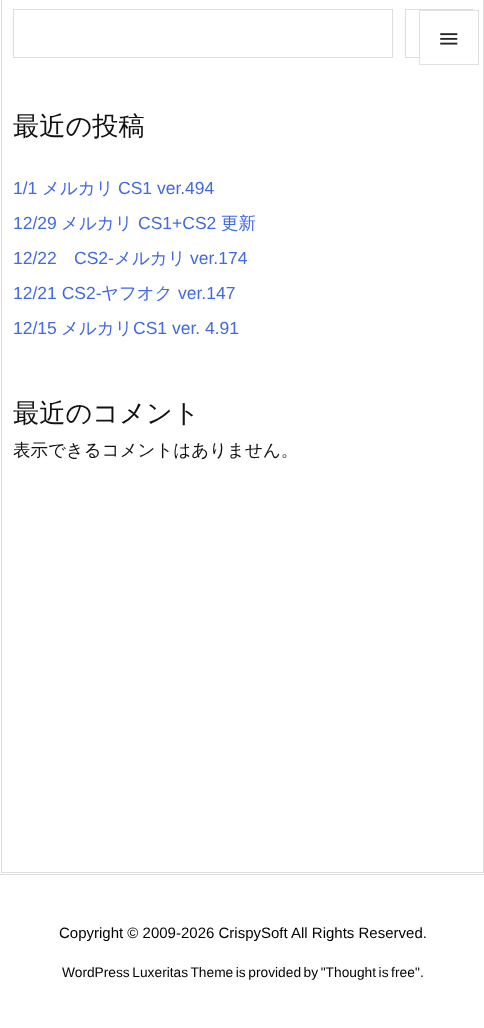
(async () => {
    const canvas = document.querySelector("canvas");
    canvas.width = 484;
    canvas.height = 1028;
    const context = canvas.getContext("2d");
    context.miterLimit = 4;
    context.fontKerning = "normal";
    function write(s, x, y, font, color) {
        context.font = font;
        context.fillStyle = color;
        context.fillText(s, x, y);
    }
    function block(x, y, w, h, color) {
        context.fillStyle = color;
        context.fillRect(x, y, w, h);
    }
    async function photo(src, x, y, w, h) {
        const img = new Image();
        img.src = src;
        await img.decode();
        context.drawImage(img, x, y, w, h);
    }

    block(0, 0, 484, 1028, "rgb(255, 255, 255)");
    context.strokeStyle = "rgb(221, 221, 221)";
    context.strokeRect(1.5, -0.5, 482, 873);
    context.strokeRect(405.5, 9.5, 67, 48);
    block(419, 10, 54, 48, "rgba(255, 255, 255, 0.9)");
    context.strokeStyle = "rgba(221, 221, 221, 0.9)";
    context.strokeRect(419.5, 10.5, 59, 54);
    await photo("media/1.png", 440, 33, 18, 12);
    context.strokeStyle = "rgb(221, 221, 221)";
    context.strokeRect(13.5, 9.5, 379, 48);
    write("最近の投稿", 13, 135, "500 26.25px WenQuanYi Zen Hei", "rgb(17, 17, 17)");
    write("1/1", 13, 194, "17.5px Liberation Sans", "rgb(65, 105, 225)");
    write("メルカリ", 42, 194, "500 17.5px WenQuanYi Zen Hei", "rgb(65, 105, 225)");
    write("CS1 ver.494", 118, 194, "17.5px Liberation Sans", "rgb(65, 105, 225)");
    write("12/29", 13, 229, "17.5px Liberation Sans", "rgb(65, 105, 225)");
    write("メルカリ", 61, 229, "500 17.5px WenQuanYi Zen Hei", "rgb(65, 105, 225)");
    write("CS1+CS2", 138, 229, "17.5px Liberation Sans", "rgb(65, 105, 225)");
    write("更新", 221, 229, "500 17.5px WenQuanYi Zen Hei", "rgb(65, 105, 225)");
    write("12/22", 13, 264, "17.5px Liberation Sans", "rgb(65, 105, 225)");
    write("CS2-", 74, 264, "17.5px Liberation Sans", "rgb(65, 105, 225)");
    write("メルカリ", 114, 264, "500 17.5px WenQuanYi Zen Hei", "rgb(65, 105, 225)");
    write("ver.174", 190, 264, "17.5px Liberation Sans", "rgb(65, 105, 225)");
    write("12/21 CS2-", 13, 299, "17.5px Liberation Sans", "rgb(65, 105, 225)");
    write("ヤフオク", 101, 299, "500 17.5px WenQuanYi Zen Hei", "rgb(65, 105, 225)");
    write("ver.147", 178, 299, "17.5px Liberation Sans", "rgb(65, 105, 225)");
    write("12/15", 13, 334, "17.5px Liberation Sans", "rgb(65, 105, 225)");
    write("メルカリ", 61, 334, "500 17.5px WenQuanYi Zen Hei", "rgb(65, 105, 225)");
    write("CS1 ver. 4.91", 133, 334, "17.5px Liberation Sans", "rgb(65, 105, 225)");
    write("最近のコメント", 13, 422, "500 26.25px WenQuanYi Zen Hei", "rgb(17, 17, 17)");
    write("表示できるコメントはありません。", 13, 456, "500 17.5px WenQuanYi Zen Hei", "rgb(17, 17, 17)");
    block(0, 874, 484, 1, "rgb(221, 221, 221)");
    write("Copyright © 2009-2026 CrispySoft", 59, 938, "15px Liberation Sans", "rgb(0, 0, 0)");
    write("All Rights Reserved.", 291, 938, "15px Liberation Sans", "rgb(0, 0, 0)");
    context.wordSpacing = "-1.25px";
    write("WordPress Luxeritas Theme is provided by \"Thought is free", 62, 977, "13.75px Liberation Sans", "rgb(0, 0, 0)");
    context.wordSpacing = "0px";
    write("\".", 415, 977, "13.75px Liberation Sans", "rgb(0, 0, 0)");
})();
